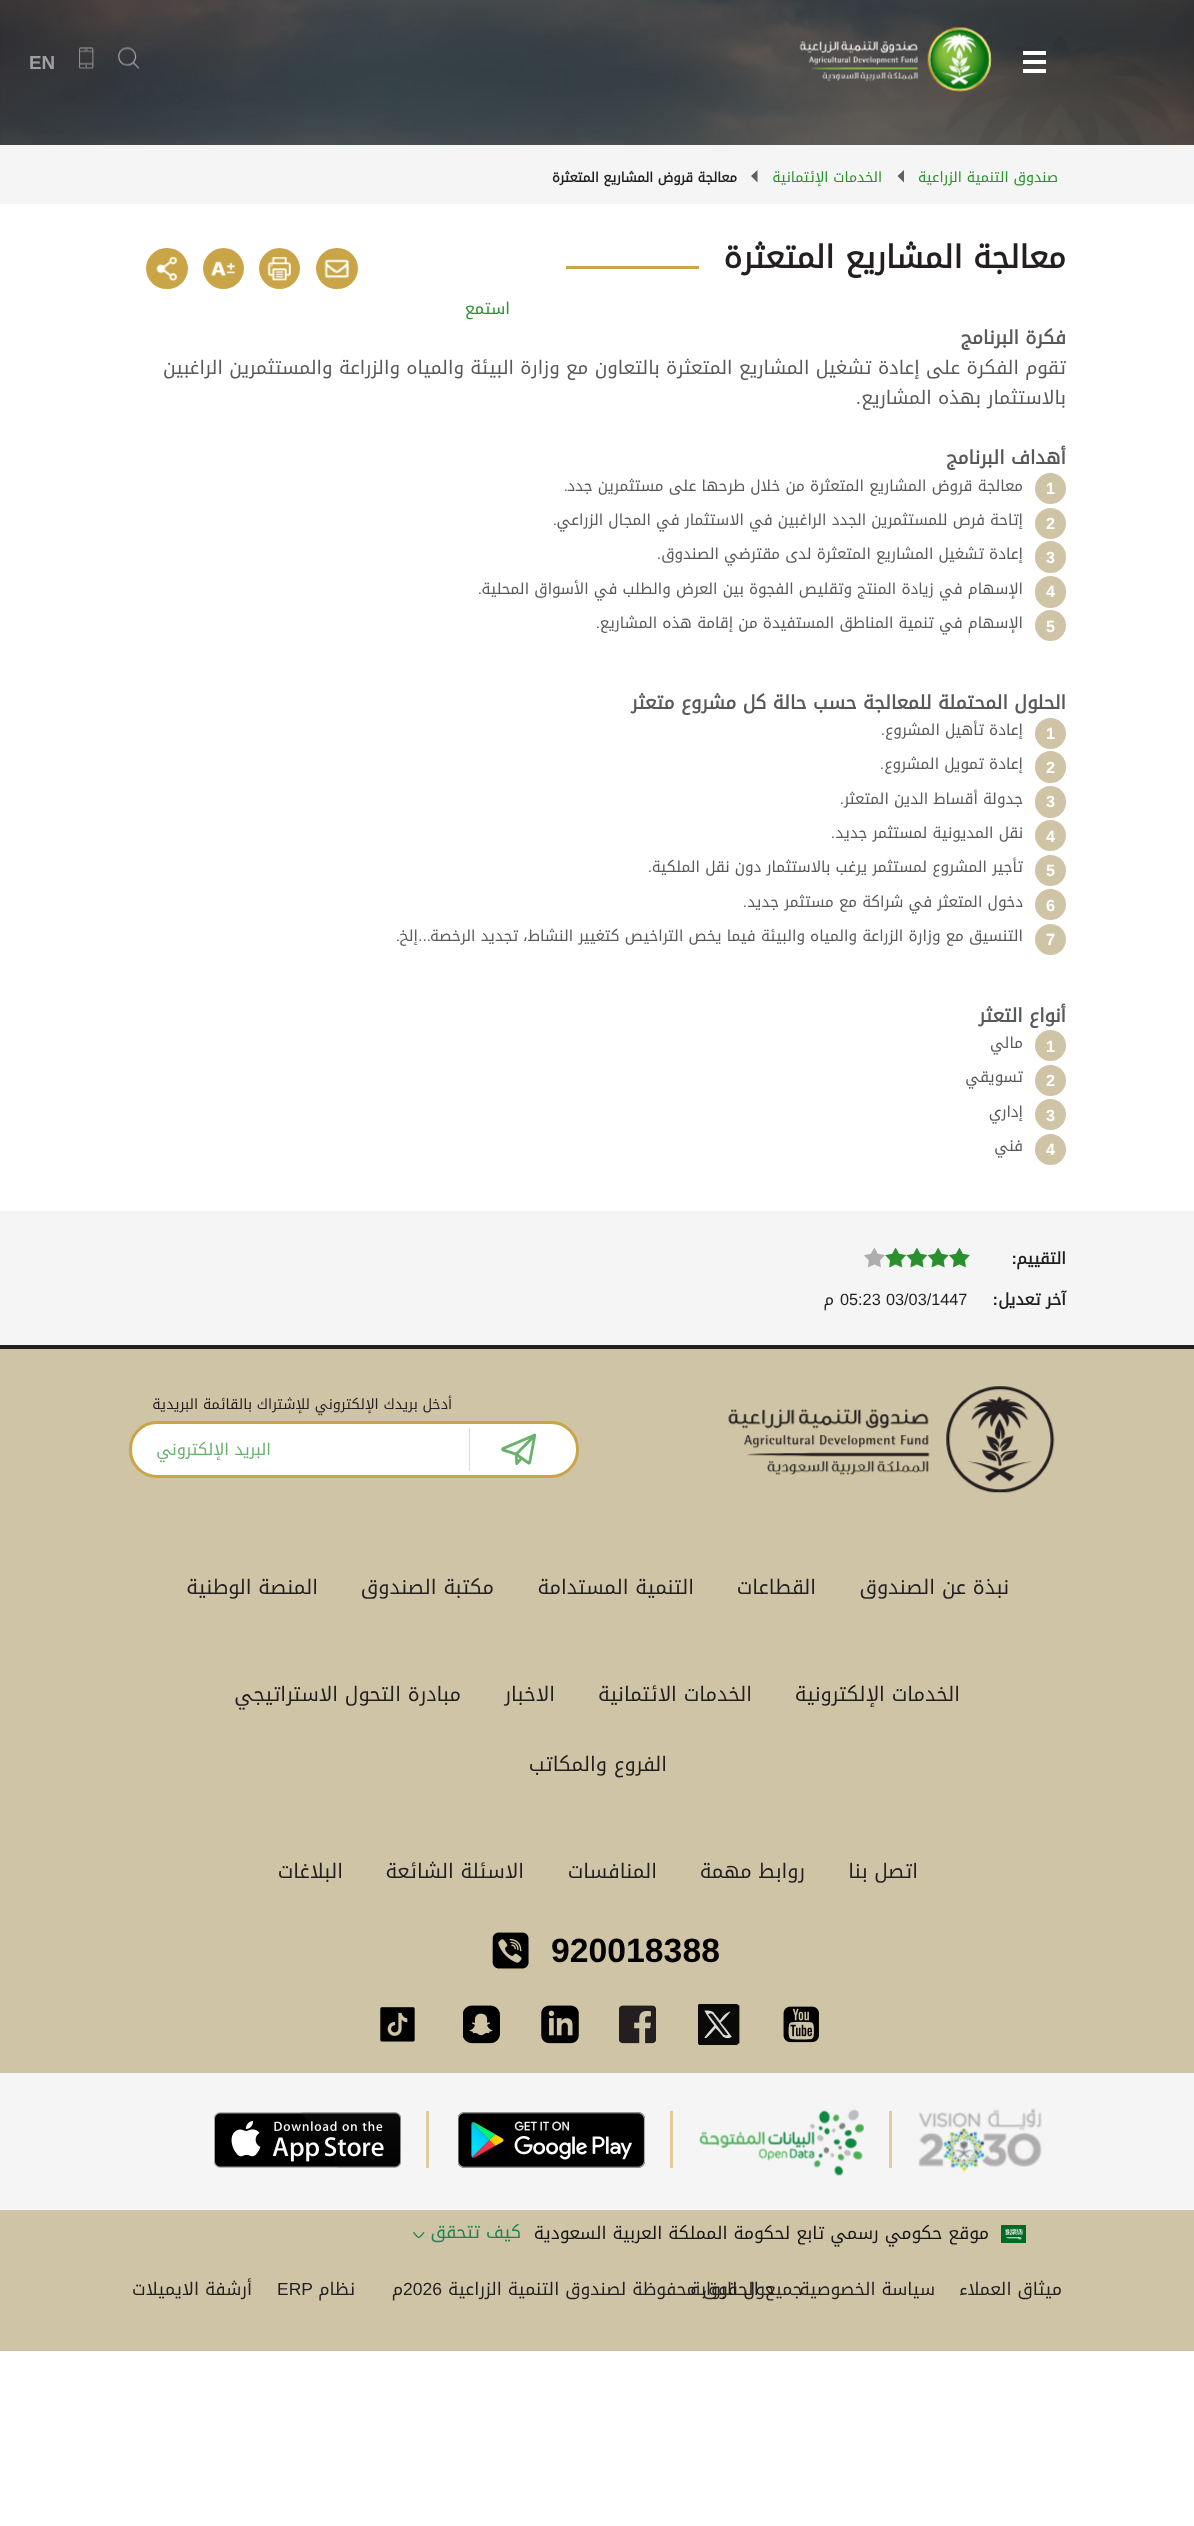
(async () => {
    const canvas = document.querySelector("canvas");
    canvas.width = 1194;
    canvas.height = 2526;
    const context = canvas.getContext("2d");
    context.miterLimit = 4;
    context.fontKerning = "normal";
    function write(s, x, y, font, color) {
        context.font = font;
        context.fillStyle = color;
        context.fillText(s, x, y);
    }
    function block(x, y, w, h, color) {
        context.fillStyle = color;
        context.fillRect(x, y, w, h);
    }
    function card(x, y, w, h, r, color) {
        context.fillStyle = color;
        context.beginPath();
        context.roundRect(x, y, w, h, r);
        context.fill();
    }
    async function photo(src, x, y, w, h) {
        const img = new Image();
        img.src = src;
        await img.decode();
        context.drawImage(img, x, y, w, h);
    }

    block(0, 0, 1194, 2526, "rgb(255, 255, 255)");
    await photo("media/1.png", 0, 0, 1194, 145);
    block(1023, 51, 23, 4, "rgb(255, 255, 255)");
    block(1023, 60, 23, 4, "rgb(255, 255, 255)");
    block(1023, 69, 23, 4, "rgb(255, 255, 255)");
    await photo("media/2.png", 799, 27, 193, 65);
    await photo("media/3.png", 118, 47, 22, 22);
    await photo("media/4.png", 79, 47, 15, 22);
    write("EN", 29, 69, "bold 18.75px Liberation Sans", "rgb(160, 160, 160)");
    block(0, 145, 1194, 59, "rgb(245, 245, 245)");
    context.direction = "rtl";
    write("صندوق التنمية الزراعية", 1058, 182, "14.25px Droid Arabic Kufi", "rgb(42, 144, 45)");
    context.fillStyle = "rgb(94, 96, 99)";
    context.beginPath();
    context.moveTo(904, 170);
    context.lineTo(904, 182.5);
    context.lineTo(897.5, 176);
    context.closePath();
    context.fill();
    write("الخدمات الإئتمانية", 882, 182, "14.25px Droid Arabic Kufi", "rgb(42, 144, 45)");
    context.fillStyle = "rgb(94, 96, 99)";
    context.beginPath();
    context.moveTo(757.5, 170);
    context.lineTo(757.5, 182.5);
    context.lineTo(751, 176);
    context.closePath();
    context.fill();
    write("معالجة قروض المشاريع المتعثرة", 737, 182, "bold 13.25px Droid Arabic Kufi", "rgb(35, 31, 32)");
    write("معالجة المشاريع المتعثرة", 1066, 268, "bold 31.25px Droid Arabic Kufi", "rgb(35, 31, 32)");
    block(566, 266, 133, 3, "rgb(202, 165, 71)");
    card(316, 248, 42, 41, 20.5, "rgb(202, 165, 71)");
    await photo("media/5.png", 324, 259, 25, 20);
    context.beginPath();
    context.arc(279.5, 268.5, 20.5, 0, Math.PI * 2);
    context.fill();
    await photo("media/6.png", 267, 256, 24, 25);
    context.beginPath();
    context.arc(223.5, 268.5, 20.5, 0, Math.PI * 2);
    context.fill();
    await photo("media/7.png", 211, 261, 24, 16);
    card(146, 248, 42, 41, 20.5, "rgb(202, 165, 71)");
    await photo("media/8.png", 156, 257, 21, 25);
    write("استمع", 510, 314, "16.25px Droid Arabic Kufi", "rgb(42, 144, 45)");
    write("فكرة البرنامج", 1066, 344, "bold 18.75px Droid Arabic Kufi", "rgb(88, 89, 91)");
    write("تقوم الفكرة على إعادة تشغيل المشاريع المتعثرة بالتعاون مع وزارة البيئة والمياه والزراعة والمستثمرين الراغبين", 1066, 374, "18.75px Droid Arabic Kufi", "rgb(88, 89, 91)");
    write("بالاستثمار بهذه المشاريع", 1066, 404, "18.75px Droid Arabic Kufi", "rgb(88, 89, 91)");
    write(".", 861, 404, "18.75px Liberation Sans", "rgb(88, 89, 91)");
    write("أهداف البرنامج", 1066, 464, "bold 18.75px Droid Arabic Kufi", "rgb(88, 89, 91)");
    context.fillStyle = "rgb(208, 196, 166)";
    context.beginPath();
    context.arc(1050.5, 488.5, 15.5, 0, Math.PI * 2);
    context.fill();
    context.direction = "ltr";
    write("1", 1046, 494, "bold 16.25px Liberation Sans", "rgb(255, 255, 255)");
    context.direction = "rtl";
    write("معالجة قروض المشاريع المتعثرة من خلال طرحها على مستثمرين جدد", 1023, 491, "15.25px Droid Arabic Kufi", "rgb(88, 89, 91)");
    write(".", 568, 491, "15.25px Liberation Sans", "rgb(88, 89, 91)");
    context.fillStyle = "rgb(208, 196, 166)";
    context.beginPath();
    context.arc(1050.5, 523.5, 15.5, 0, Math.PI * 2);
    context.fill();
    context.direction = "ltr";
    write("2", 1046, 529, "bold 16.25px Liberation Sans", "rgb(255, 255, 255)");
    context.direction = "rtl";
    write("إتاحة فرص للمستثمرين الجدد الراغبين في الاستثمار في المجال الزراعي", 1023, 525, "15.25px Droid Arabic Kufi", "rgb(88, 89, 91)");
    write(".", 557, 525, "15.25px Liberation Sans", "rgb(88, 89, 91)");
    card(1035, 541, 31, 32, 15.5, "rgb(208, 196, 166)");
    context.direction = "ltr";
    write("3", 1046, 563, "bold 16.25px Liberation Sans", "rgb(255, 255, 255)");
    context.direction = "rtl";
    write("إعادة تشغيل المشاريع المتعثرة لدى مقترضي الصندوق", 1023, 559, "15.25px Droid Arabic Kufi", "rgb(88, 89, 91)");
    write(".", 661, 559, "15.25px Liberation Sans", "rgb(88, 89, 91)");
    card(1035, 576, 31, 32, 15.5, "rgb(208, 196, 166)");
    context.direction = "ltr";
    write("4", 1046, 597, "bold 16.25px Liberation Sans", "rgb(255, 255, 255)");
    context.direction = "rtl";
    write("الإسهام في زيادة المنتج وتقليص الفجوة بين العرض والطلب في الأسواق المحلية", 1023, 594, "15.25px Droid Arabic Kufi", "rgb(88, 89, 91)");
    write(".", 482, 594, "15.25px Liberation Sans", "rgb(88, 89, 91)");
    context.fillStyle = "rgb(208, 196, 166)";
    context.beginPath();
    context.arc(1050.5, 625.5, 15.5, 0, Math.PI * 2);
    context.fill();
    context.direction = "ltr";
    write("5", 1046, 632, "bold 16.25px Liberation Sans", "rgb(255, 255, 255)");
    context.direction = "rtl";
    write("الإسهام في تنمية المناطق المستفيدة من إقامة هذه المشاريع", 1023, 628, "15.25px Droid Arabic Kufi", "rgb(88, 89, 91)");
    write(".", 600, 628, "15.25px Liberation Sans", "rgb(88, 89, 91)");
    write("الحلول المحتملة للمعالجة حسب حالة كل مشروع متعثر", 1066, 709, "bold 18.75px Droid Arabic Kufi", "rgb(88, 89, 91)");
    context.fillStyle = "rgb(208, 196, 166)";
    context.beginPath();
    context.arc(1050.5, 733.5, 15.5, 0, Math.PI * 2);
    context.fill();
    context.direction = "ltr";
    write("1", 1046, 739, "bold 16.25px Liberation Sans", "rgb(255, 255, 255)");
    context.direction = "rtl";
    write("إعادة تأهيل المشروع", 1023, 735, "15.25px Droid Arabic Kufi", "rgb(88, 89, 91)");
    write(".", 885, 735, "15.25px Liberation Sans", "rgb(88, 89, 91)");
    card(1035, 751, 31, 32, 15.5, "rgb(208, 196, 166)");
    context.direction = "ltr";
    write("2", 1046, 773, "bold 16.25px Liberation Sans", "rgb(255, 255, 255)");
    context.direction = "rtl";
    write("إعادة تمويل المشروع", 1023, 769, "15.25px Droid Arabic Kufi", "rgb(88, 89, 91)");
    write(".", 884, 769, "15.25px Liberation Sans", "rgb(88, 89, 91)");
    card(1035, 786, 31, 32, 15.5, "rgb(208, 196, 166)");
    context.direction = "ltr";
    write("3", 1046, 807, "bold 16.25px Liberation Sans", "rgb(255, 255, 255)");
    context.direction = "rtl";
    write("جدولة أقساط الدين المتعثر", 1023, 804, "15.25px Droid Arabic Kufi", "rgb(88, 89, 91)");
    write(".", 844, 804, "15.25px Liberation Sans", "rgb(88, 89, 91)");
    context.fillStyle = "rgb(208, 196, 166)";
    context.beginPath();
    context.arc(1050.5, 835.5, 15.5, 0, Math.PI * 2);
    context.fill();
    context.direction = "ltr";
    write("4", 1046, 842, "bold 16.25px Liberation Sans", "rgb(255, 255, 255)");
    context.direction = "rtl";
    write("نقل المديونية لمستثمر جديد", 1023, 838, "15.25px Droid Arabic Kufi", "rgb(88, 89, 91)");
    write(".", 835, 838, "15.25px Liberation Sans", "rgb(88, 89, 91)");
    context.fillStyle = "rgb(208, 196, 166)";
    context.beginPath();
    context.arc(1050.5, 870.5, 15.5, 0, Math.PI * 2);
    context.fill();
    context.direction = "ltr";
    write("5", 1046, 876, "bold 16.25px Liberation Sans", "rgb(255, 255, 255)");
    context.direction = "rtl";
    write("تأجير المشروع لمستثمر يرغب بالاستثمار دون نقل الملكية", 1023, 872, "15.25px Droid Arabic Kufi", "rgb(88, 89, 91)");
    write(".", 652, 872, "15.25px Liberation Sans", "rgb(88, 89, 91)");
    context.fillStyle = "rgb(208, 196, 166)";
    context.beginPath();
    context.arc(1050.5, 904.5, 15.5, 0, Math.PI * 2);
    context.fill();
    context.direction = "ltr";
    write("6", 1046, 911, "bold 16.25px Liberation Sans", "rgb(255, 255, 255)");
    context.direction = "rtl";
    write("دخول المتعثر في شراكة مع مستثمر جديد", 1023, 907, "15.25px Droid Arabic Kufi", "rgb(88, 89, 91)");
    write(".", 747, 907, "15.25px Liberation Sans", "rgb(88, 89, 91)");
    context.fillStyle = "rgb(208, 196, 166)";
    context.beginPath();
    context.arc(1050.5, 939.5, 15.5, 0, Math.PI * 2);
    context.fill();
    context.direction = "ltr";
    write("7", 1046, 945, "bold 16.25px Liberation Sans", "rgb(255, 255, 255)");
    context.direction = "rtl";
    write("التنسيق مع وزارة الزراعة والمياه والبيئة فيما يخص التراخيص كتغيير النشاط، تجديد الرخصة", 1023, 941, "15.25px Droid Arabic Kufi", "rgb(88, 89, 91)");
    write("...", 431, 941, "15.25px Liberation Sans", "rgb(88, 89, 91)");
    write("إلخ", 418, 941, "15.25px Droid Arabic Kufi", "rgb(88, 89, 91)");
    write(".", 400, 941, "15.25px Liberation Sans", "rgb(88, 89, 91)");
    write("أنواع التعثر", 1066, 1022, "bold 18.75px Droid Arabic Kufi", "rgb(88, 89, 91)");
    context.fillStyle = "rgb(208, 196, 166)";
    context.beginPath();
    context.arc(1050.5, 1045.5, 15.5, 0, Math.PI * 2);
    context.fill();
    context.direction = "ltr";
    write("1", 1046, 1052, "bold 16.25px Liberation Sans", "rgb(255, 255, 255)");
    context.direction = "rtl";
    write("مالي", 1023, 1048, "15.25px Droid Arabic Kufi", "rgb(88, 89, 91)");
    context.fillStyle = "rgb(208, 196, 166)";
    context.beginPath();
    context.arc(1050.5, 1080.5, 15.5, 0, Math.PI * 2);
    context.fill();
    context.direction = "ltr";
    write("2", 1046, 1086, "bold 16.25px Liberation Sans", "rgb(255, 255, 255)");
    context.direction = "rtl";
    write("تسويقي", 1023, 1082, "15.25px Droid Arabic Kufi", "rgb(88, 89, 91)");
    context.fillStyle = "rgb(208, 196, 166)";
    context.beginPath();
    context.arc(1050.5, 1114.5, 15.5, 0, Math.PI * 2);
    context.fill();
    context.direction = "ltr";
    write("3", 1046, 1121, "bold 16.25px Liberation Sans", "rgb(255, 255, 255)");
    context.direction = "rtl";
    write("إداري", 1023, 1117, "15.25px Droid Arabic Kufi", "rgb(88, 89, 91)");
    context.fillStyle = "rgb(208, 196, 166)";
    context.beginPath();
    context.arc(1050.5, 1149.5, 15.5, 0, Math.PI * 2);
    context.fill();
    context.direction = "ltr";
    write("4", 1046, 1155, "bold 16.25px Liberation Sans", "rgb(255, 255, 255)");
    context.direction = "rtl";
    write("فني", 1023, 1151, "15.25px Droid Arabic Kufi", "rgb(88, 89, 91)");
    block(0, 1211, 1194, 134, "rgb(245, 245, 245)");
    write("التقييم", 1066, 1264, "bold 16.25px Droid Arabic Kufi", "rgb(35, 31, 32)");
    write(":", 1017, 1264, "bold 16.25px Liberation Sans", "rgb(35, 31, 32)");
    await photo("media/9.png", 949, 1248, 21, 20);
    await photo("media/10.png", 928, 1248, 21, 20);
    await photo("media/11.png", 906, 1248, 22, 20);
    await photo("media/12.png", 885, 1248, 21, 20);
    await photo("media/13.png", 864, 1248, 21, 20);
    write("آخر تعديل", 1066, 1305, "bold 16.25px Droid Arabic Kufi", "rgb(35, 31, 32)");
    write(":", 998, 1305, "bold 16.25px Liberation Sans", "rgb(35, 31, 32)");
    context.direction = "ltr";
    write("03/03/1447", 886, 1305, "16.25px Liberation Sans", "rgb(35, 31, 32)");
    write("05:23", 840, 1305, "16.25px Liberation Sans", "rgb(35, 31, 32)");
    context.direction = "rtl";
    write("م", 834, 1305, "16.25px Droid Arabic Kufi", "rgb(35, 31, 32)");
    block(0, 1349, 1194, 1002, "rgb(208, 196, 166)");
    block(0, 1345, 1194, 4, "rgb(35, 31, 32)");
    await photo("media/14.png", 728, 1386, 327, 107);
    write("أدخل بريدك الإلكتروني للإشتراك بالقائمة البريدية", 452, 1409, "14.25px Droid Arabic Kufi", "rgb(35, 31, 32)");
    context.fillStyle = "rgb(255, 255, 255)";
    context.beginPath();
    context.roundRect(130.5, 1422.5, 447, 54, 26.5);
    context.fill();
    context.strokeStyle = "rgb(202, 165, 71)";
    context.lineWidth = 3;
    context.stroke();
    block(469, 1428, 1, 43, "rgb(233, 220, 188)");
    await photo("media/15.png", 501, 1433, 35, 33);
    write("البريد الإلكتروني", 271, 1455, "16.25px Droid Arabic Kufi", "rgb(106, 177, 108)");
    write("نبذة عن الصندوق", 1009, 1594, "20px Droid Arabic Kufi", "rgb(35, 31, 32)");
    write("القطاعات", 816, 1594, "20px Droid Arabic Kufi", "rgb(35, 31, 32)");
    write("التنمية المستدامة", 694, 1594, "20px Droid Arabic Kufi", "rgb(35, 31, 32)");
    write("مكتبة الصندوق", 494, 1594, "20px Droid Arabic Kufi", "rgb(35, 31, 32)");
    write("المنصة الوطنية", 318, 1594, "20px Droid Arabic Kufi", "rgb(35, 31, 32)");
    write("الخدمات الإلكترونية", 960, 1701, "20px Droid Arabic Kufi", "rgb(35, 31, 32)");
    write("الخدمات الائتمانية", 752, 1701, "20px Droid Arabic Kufi", "rgb(35, 31, 32)");
    write("الاخبار", 555, 1701, "20px Droid Arabic Kufi", "rgb(35, 31, 32)");
    write("مبادرة التحول الاستراتيجي", 461, 1701, "20px Droid Arabic Kufi", "rgb(35, 31, 32)");
    write("الفروع والمكاتب", 667, 1771, "20px Droid Arabic Kufi", "rgb(35, 31, 32)");
    write("اتصل بنا", 918, 1878, "20px Droid Arabic Kufi", "rgb(35, 31, 32)");
    write("روابط مهمة", 805, 1878, "20px Droid Arabic Kufi", "rgb(35, 31, 32)");
    write("المنافسات", 657, 1878, "20px Droid Arabic Kufi", "rgb(35, 31, 32)");
    write("الاسئلة الشائعة", 524, 1878, "20px Droid Arabic Kufi", "rgb(35, 31, 32)");
    write("البلاغات", 343, 1878, "20px Droid Arabic Kufi", "rgb(35, 31, 32)");
    context.direction = "ltr";
    write("920018388", 551, 1962, "bold 33.75px Liberation Sans", "rgb(0, 0, 0)");
    await photo("media/16.png", 492, 1932, 37, 37);
    await photo("media/17.png", 783, 2006, 36, 37);
    await photo("media/18.png", 698, 2004, 42, 41);
    await photo("media/19.png", 619, 2005, 37, 39);
    await photo("media/20.png", 541, 2005, 38, 39);
    await photo("media/21.png", 463, 2005, 37, 39);
    await photo("media/22.png", 380, 2007, 35, 35);
    block(0, 2073, 1194, 137, "rgb(245, 245, 245)");
    await photo("media/23.png", 918, 2108, 124, 64);
    block(889, 2111, 3, 57, "rgb(224, 205, 158)");
    await photo("media/24.png", 699, 2109, 165, 67);
    block(670, 2111, 3, 57, "rgb(224, 205, 158)");
    await photo("media/25.png", 458, 2112, 187, 56);
    block(426, 2111, 3, 57, "rgb(224, 205, 158)");
    await photo("media/26.png", 214, 2112, 187, 56);
    await photo("media/27.png", 1001, 2225, 25, 18);
    context.direction = "rtl";
    write("موقع حكومي رسمي تابع لحكومة المملكة العربية السعودية", 989, 2239, "17.5px Droid Arabic Kufi", "rgb(22, 22, 22)");
    write("كيف تتحقق", 521, 2238, "17.5px Droid Arabic Kufi", "rgb(27, 131, 84)");
    await photo("media/28.png", 413, 2231, 12, 8);
    write("ميثاق العملاء", 1062, 2295, "17.5px Droid Arabic Kufi", "rgb(35, 31, 32)");
    write("جميع الحقوق محفوظة لصندوق التنمية الزراعية", 803, 2295, "17.5px Droid Arabic Kufi", "rgb(35, 31, 32)");
    write("سياسة الخصوصية", 935, 2295, "17.5px Droid Arabic Kufi", "rgb(35, 31, 32)");
    write("حول البوابة", 775, 2295, "17.5px Droid Arabic Kufi", "rgb(35, 31, 32)");
    write("نظام", 355, 2295, "17.5px Droid Arabic Kufi", "rgb(35, 31, 32)");
    context.direction = "ltr";
    write("ERP", 277, 2295, "17.5px Liberation Sans", "rgb(35, 31, 32)");
    context.direction = "rtl";
    write("أرشفة الايميلات", 252, 2295, "17.5px Droid Arabic Kufi", "rgb(35, 31, 32)");
    context.direction = "ltr";
    write("2026", 403, 2295, "17.5px Liberation Sans", "rgb(35, 31, 32)");
    context.direction = "rtl";
    write("م", 403, 2295, "17.5px Droid Arabic Kufi", "rgb(35, 31, 32)");
})();
